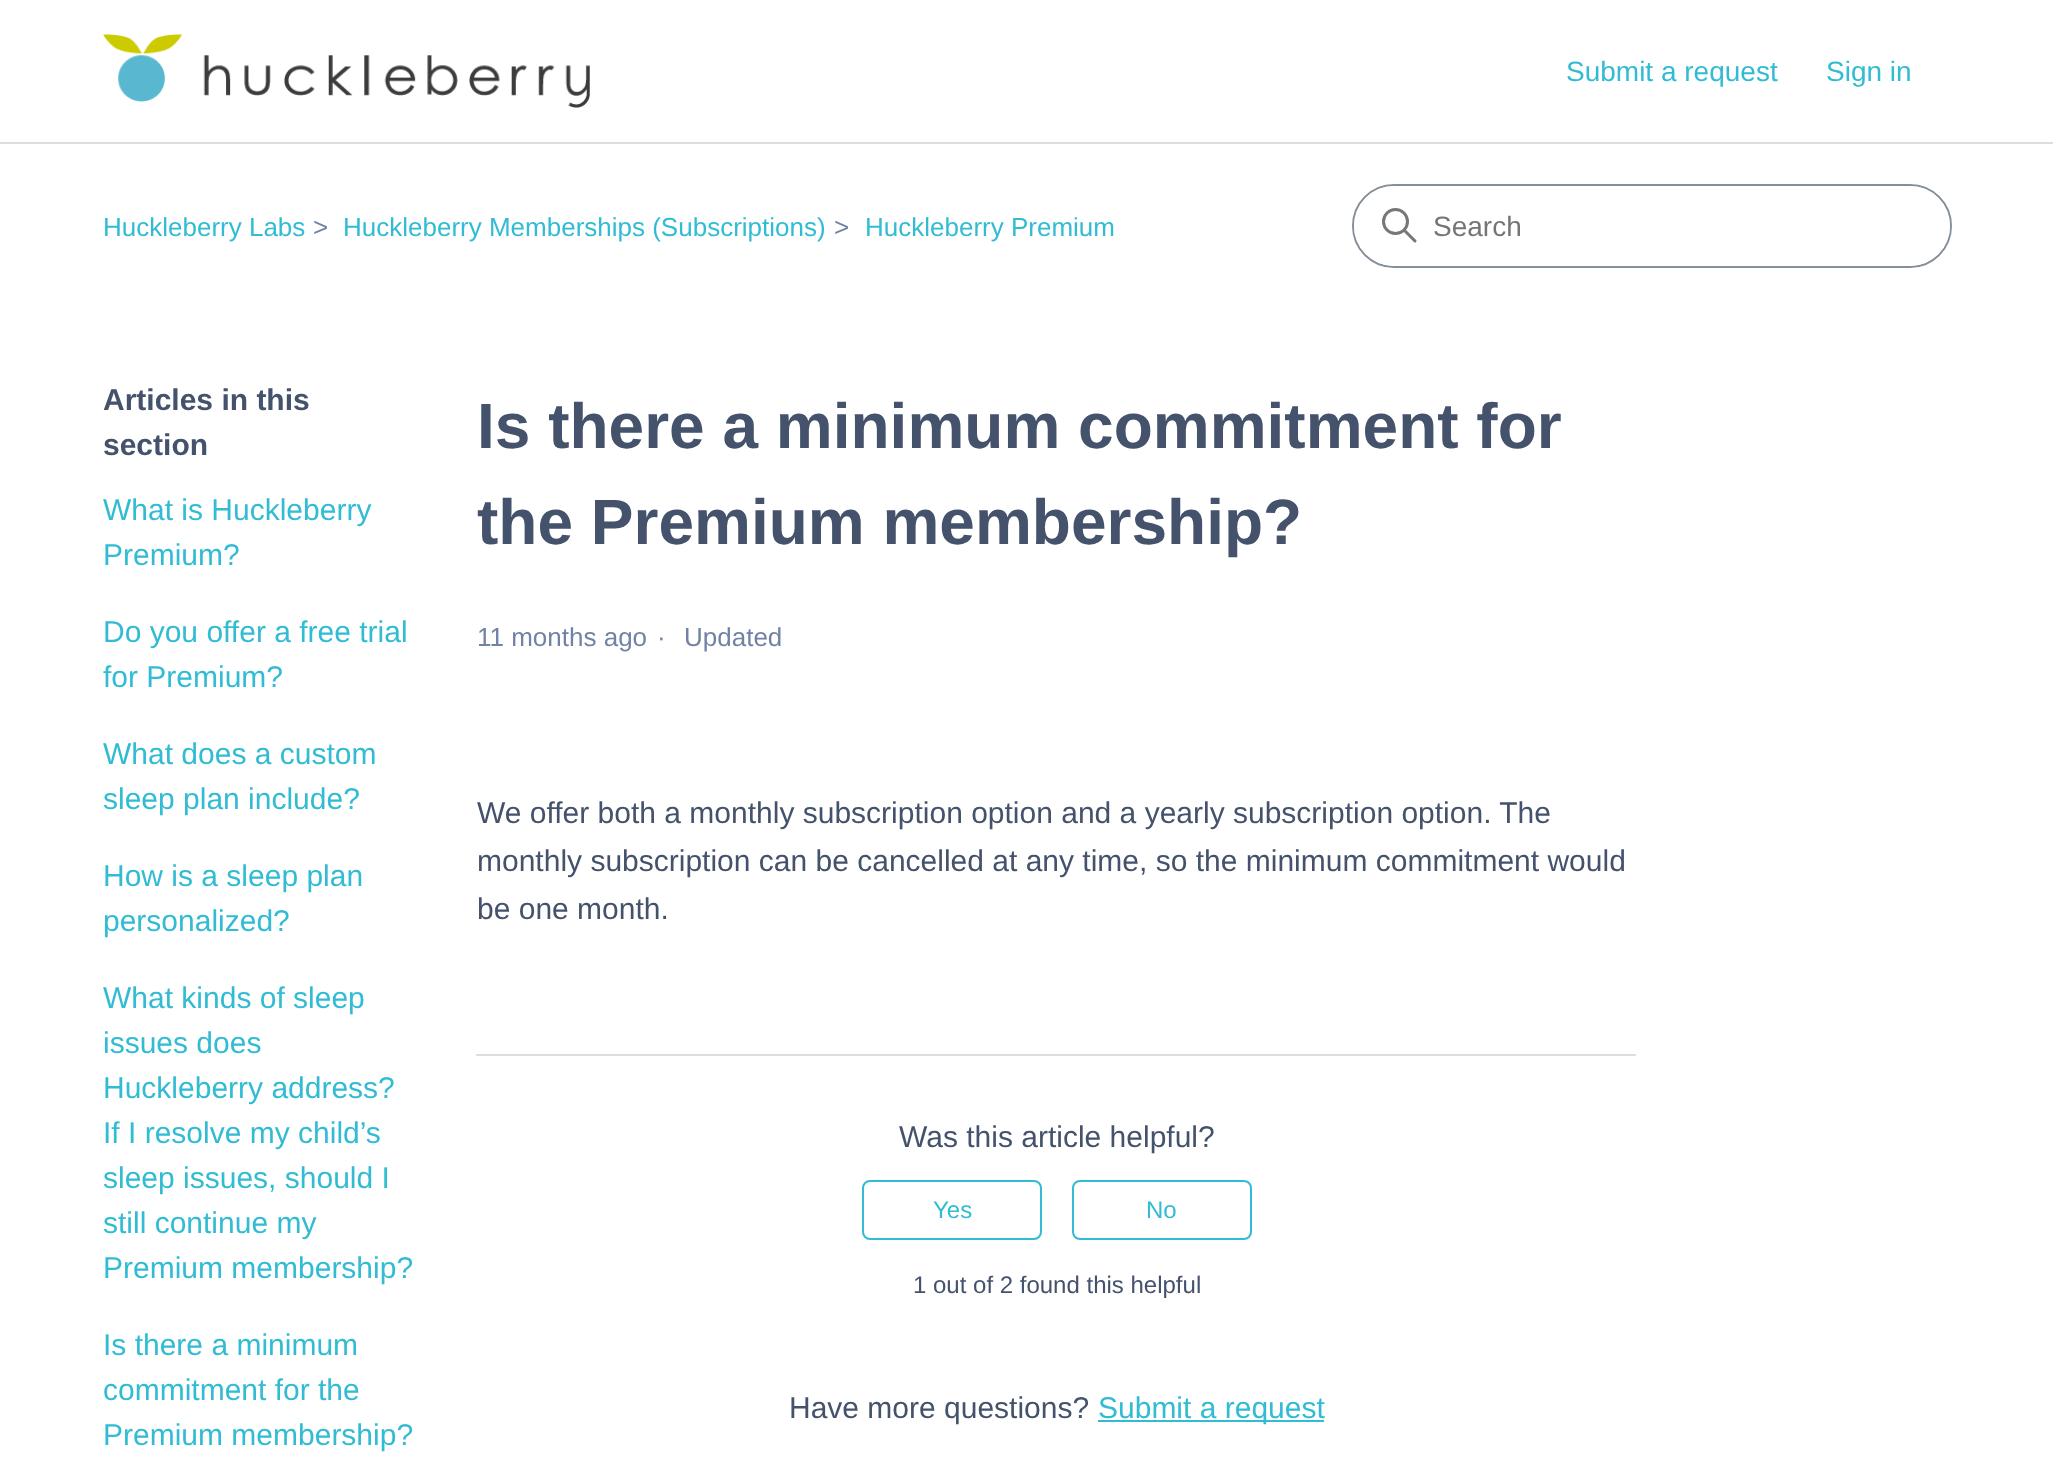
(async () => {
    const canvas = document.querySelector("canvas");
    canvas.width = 2053;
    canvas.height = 1461;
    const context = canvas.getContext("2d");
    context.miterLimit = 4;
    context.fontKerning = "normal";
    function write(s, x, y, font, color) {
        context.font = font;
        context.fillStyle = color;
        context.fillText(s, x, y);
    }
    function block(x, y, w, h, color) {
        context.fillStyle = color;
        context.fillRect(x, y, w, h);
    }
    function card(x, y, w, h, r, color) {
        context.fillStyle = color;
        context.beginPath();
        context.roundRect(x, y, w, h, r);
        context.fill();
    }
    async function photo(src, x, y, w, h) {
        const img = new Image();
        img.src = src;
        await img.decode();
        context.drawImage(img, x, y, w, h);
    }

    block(0, 0, 2053, 1461, "rgb(255, 255, 255)");
    await photo("media/1.png", 103, 34, 487, 74);
    write("Submit a request", 1566, 81, "28px Liberation Sans", "rgb(49, 188, 211)");
    write("Sign in", 1826, 81, "28px Liberation Sans", "rgb(49, 188, 211)");
    block(0, 142, 2053, 2, "rgb(221, 221, 221)");
    write("Huckleberry Labs", 103, 236, "26px Liberation Sans", "rgb(49, 188, 211)");
    write(">", 313, 236, "26px Liberation Sans", "rgb(113, 131, 165)");
    write("Huckleberry Memberships (Subscriptions)", 343, 236, "26px Liberation Sans", "rgb(49, 188, 211)");
    write(">", 834, 236, "26px Liberation Sans", "rgb(113, 131, 165)");
    write("Huckleberry Premium", 865, 236, "26px Liberation Sans", "rgb(49, 188, 211)");
    context.beginPath();
    context.roundRect(1353, 185, 598, 82, 41);
    context.strokeStyle = "rgb(132, 143, 153)";
    context.lineWidth = 2;
    context.stroke();
    card(1354, 186, 596, 80, 40, "rgb(255, 255, 255)");
    context.beginPath();
    context.arc(1395.5, 221.5, 12, 0, Math.PI * 2);
    context.strokeStyle = "rgb(119, 119, 119)";
    context.lineWidth = 3;
    context.stroke();
    context.beginPath();
    context.moveTo(1415, 241);
    context.lineTo(1404.5, 230.5);
    context.lineCap = "round";
    context.stroke();
    write("Search", 1433, 236, "28px Liberation Sans", "rgb(117, 117, 117)");
    write("Articles in this", 103, 410, "bold 30px Liberation Sans", "rgb(68, 82, 108)");
    write("section", 103, 455, "bold 30px Liberation Sans", "rgb(68, 82, 108)");
    write("What is Huckleberry", 103, 520, "30px Liberation Sans", "rgb(49, 188, 211)");
    write("Premium?", 103, 565, "30px Liberation Sans", "rgb(49, 188, 211)");
    write("Do you offer a free trial", 103, 642, "30px Liberation Sans", "rgb(49, 188, 211)");
    write("for Premium?", 103, 687, "30px Liberation Sans", "rgb(49, 188, 211)");
    write("What does a custom", 103, 764, "30px Liberation Sans", "rgb(49, 188, 211)");
    write("sleep plan include?", 103, 809, "30px Liberation Sans", "rgb(49, 188, 211)");
    write("How is a sleep plan", 103, 886, "30px Liberation Sans", "rgb(49, 188, 211)");
    write("personalized?", 103, 931, "30px Liberation Sans", "rgb(49, 188, 211)");
    write("What kinds of sleep", 103, 1008, "30px Liberation Sans", "rgb(49, 188, 211)");
    write("issues does", 103, 1053, "30px Liberation Sans", "rgb(49, 188, 211)");
    write("Huckleberry address?", 103, 1098, "30px Liberation Sans", "rgb(49, 188, 211)");
    write("If I resolve my child’s", 103, 1143, "30px Liberation Sans", "rgb(49, 188, 211)");
    write("sleep issues, should I", 103, 1188, "30px Liberation Sans", "rgb(49, 188, 211)");
    write("still continue my", 103, 1233, "30px Liberation Sans", "rgb(49, 188, 211)");
    write("Premium membership?", 103, 1278, "30px Liberation Sans", "rgb(49, 188, 211)");
    write("Is there a minimum", 103, 1355, "30px Liberation Sans", "rgb(49, 188, 211)");
    write("commitment for the", 103, 1400, "30px Liberation Sans", "rgb(49, 188, 211)");
    write("Premium membership?", 103, 1445, "30px Liberation Sans", "rgb(49, 188, 211)");
    write("Is there a minimum commitment for", 477, 448, "bold 64px Liberation Sans", "rgb(68, 82, 108)");
    write("the Premium membership?", 477, 544, "bold 64px Liberation Sans", "rgb(68, 82, 108)");
    write("11 months ago", 477, 646, "26px Liberation Sans", "rgb(113, 131, 165)");
    write("·", 657, 646, "26px Liberation Sans", "rgb(113, 131, 165)");
    write("Updated", 684, 646, "26px Liberation Sans", "rgb(113, 131, 165)");
    write("We offer both a monthly subscription option and a yearly subscription option. The", 477, 823, "30px Liberation Sans", "rgb(68, 82, 108)");
    write("monthly subscription can be cancelled at any time, so the minimum commitment would", 477, 871, "30px Liberation Sans", "rgb(68, 82, 108)");
    write("be one month.", 477, 919, "30px Liberation Sans", "rgb(68, 82, 108)");
    block(476, 1054, 1160, 2, "rgb(221, 221, 221)");
    write("Was this article helpful?", 899, 1147, "30px Liberation Sans", "rgb(68, 82, 108)");
    context.beginPath();
    context.roundRect(863, 1181, 178, 58, 7);
    context.strokeStyle = "rgb(49, 188, 211)";
    context.lineWidth = 2;
    context.stroke();
    write("Yes", 933, 1218, "24px Liberation Sans", "rgb(49, 188, 211)");
    context.beginPath();
    context.roundRect(1073, 1181, 178, 58, 7);
    context.stroke();
    write("No", 1146, 1218, "24px Liberation Sans", "rgb(49, 188, 211)");
    write("1 out of 2 found this helpful", 913, 1293, "24px Liberation Sans", "rgb(68, 82, 108)");
    write("Have more questions?", 789, 1418, "30px Liberation Sans", "rgb(68, 82, 108)");
    block(1098, 1420, 226, 2, "rgb(49, 188, 211)");
    write("Submit a request", 1098, 1418, "30px Liberation Sans", "rgb(49, 188, 211)");
})();
